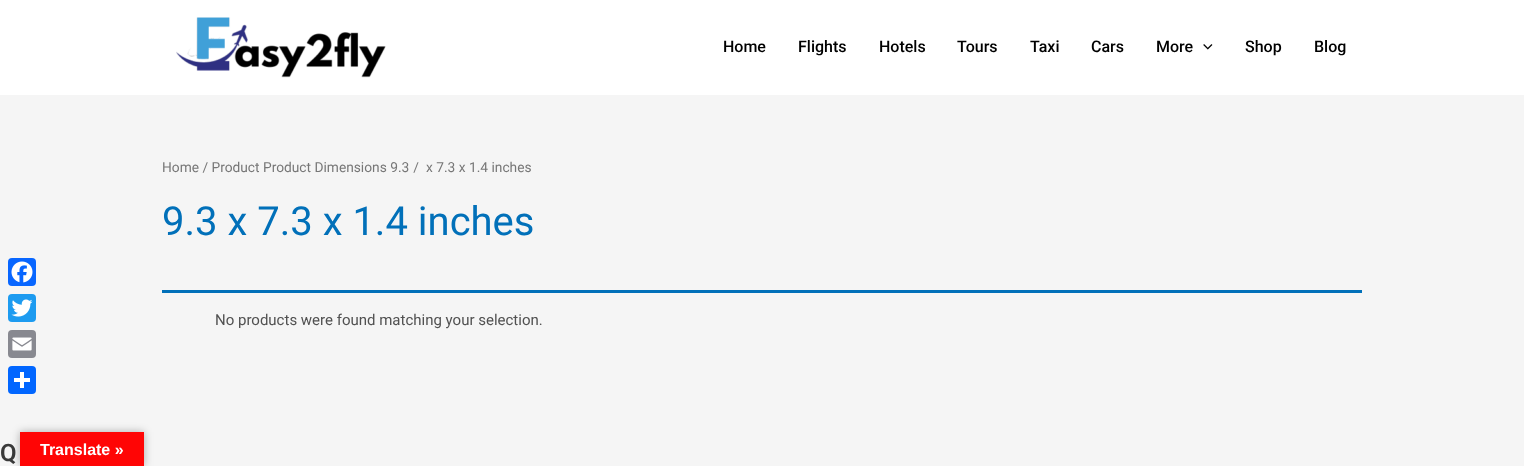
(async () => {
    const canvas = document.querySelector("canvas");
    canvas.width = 1524;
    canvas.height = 466;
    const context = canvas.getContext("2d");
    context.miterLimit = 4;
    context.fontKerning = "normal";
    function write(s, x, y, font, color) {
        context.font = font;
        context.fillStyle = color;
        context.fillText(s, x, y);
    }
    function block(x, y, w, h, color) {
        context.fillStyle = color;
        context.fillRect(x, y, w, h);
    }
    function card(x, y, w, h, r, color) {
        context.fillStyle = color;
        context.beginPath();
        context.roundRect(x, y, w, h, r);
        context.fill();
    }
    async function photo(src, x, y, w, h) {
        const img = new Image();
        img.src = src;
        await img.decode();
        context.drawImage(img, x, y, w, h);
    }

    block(0, 0, 1524, 466, "rgb(245, 245, 245)");
    block(0, 0, 1524, 95, "rgb(255, 255, 255)");
    await photo("media/1.png", 176, 17, 210, 61);
    write("Home", 723, 52, "500 16px Roboto", "rgb(0, 0, 0)");
    write("Flights", 798, 52, "500 16px Roboto", "rgb(0, 0, 0)");
    write("Hotels", 879, 52, "500 16px Roboto", "rgb(0, 0, 0)");
    write("Tours", 957, 52, "500 16px Roboto", "rgb(0, 0, 0)");
    write("Taxi", 1030, 52, "500 16px Roboto", "rgb(0, 0, 0)");
    write("Cars", 1091, 52, "500 16px Roboto", "rgb(0, 0, 0)");
    write("More", 1156, 52, "500 16px Roboto", "rgb(0, 0, 0)");
    await photo("media/2.png", 1203, 44, 10, 6);
    write("Shop", 1245, 52, "500 16px Roboto", "rgb(0, 0, 0)");
    write("Blog", 1314, 52, "500 16px Roboto", "rgb(0, 0, 0)");
    write("Home / Product Product Dimensions 9.3", 162, 172, "13.75px Roboto", "rgb(119, 119, 119)");
    context.direction = "rtl";
    write("/", 419, 172, "13.75px Roboto", "rgb(119, 119, 119)");
    context.direction = "ltr";
    write("x 7.3 x 1.4 inches", 426, 172, "13.75px Roboto", "rgb(119, 119, 119)");
    write("9.3 x 7.3 x 1.4 inches", 162, 235, "40px Roboto", "rgb(1, 112, 185)");
    block(162, 290, 1200, 3, "rgb(1, 112, 185)");
    write("No products were found matching your selection.", 215, 325, "15px Roboto", "rgb(81, 81, 81)");
    write("Q", 0, 461, "600 24px Roboto", "rgb(58, 58, 58)");
    card(8, 258, 28, 28, 4, "rgb(8, 102, 255)");
    await photo("media/3.png", 11, 261, 22, 22);
    card(8, 294, 28, 28, 4, "rgb(29, 155, 240)");
    await photo("media/4.png", 11, 299, 22, 18);
    card(8, 330, 28, 28, 4, "rgb(136, 137, 144)");
    await photo("media/5.png", 12, 337, 20, 14);
    card(8, 366, 28, 28, 4, "rgb(1, 102, 255)");
    block(20, 372, 4, 16, "rgb(255, 255, 255)");
    block(14, 378, 16, 4, "rgb(255, 255, 255)");
    context.fillStyle = "rgba(0, 0, 0, 0.3)";
    context.filter = "blur(4.5px)";
    context.beginPath();
    context.rect(20, 432, 124, 34);
    context.fill();
    context.filter = "none";
    block(20, 432, 124, 34, "rgb(255, 5, 5)");
    write("Translate »", 40, 455, "bold 16px Liberation Sans", "rgb(255, 255, 255)");
})();
